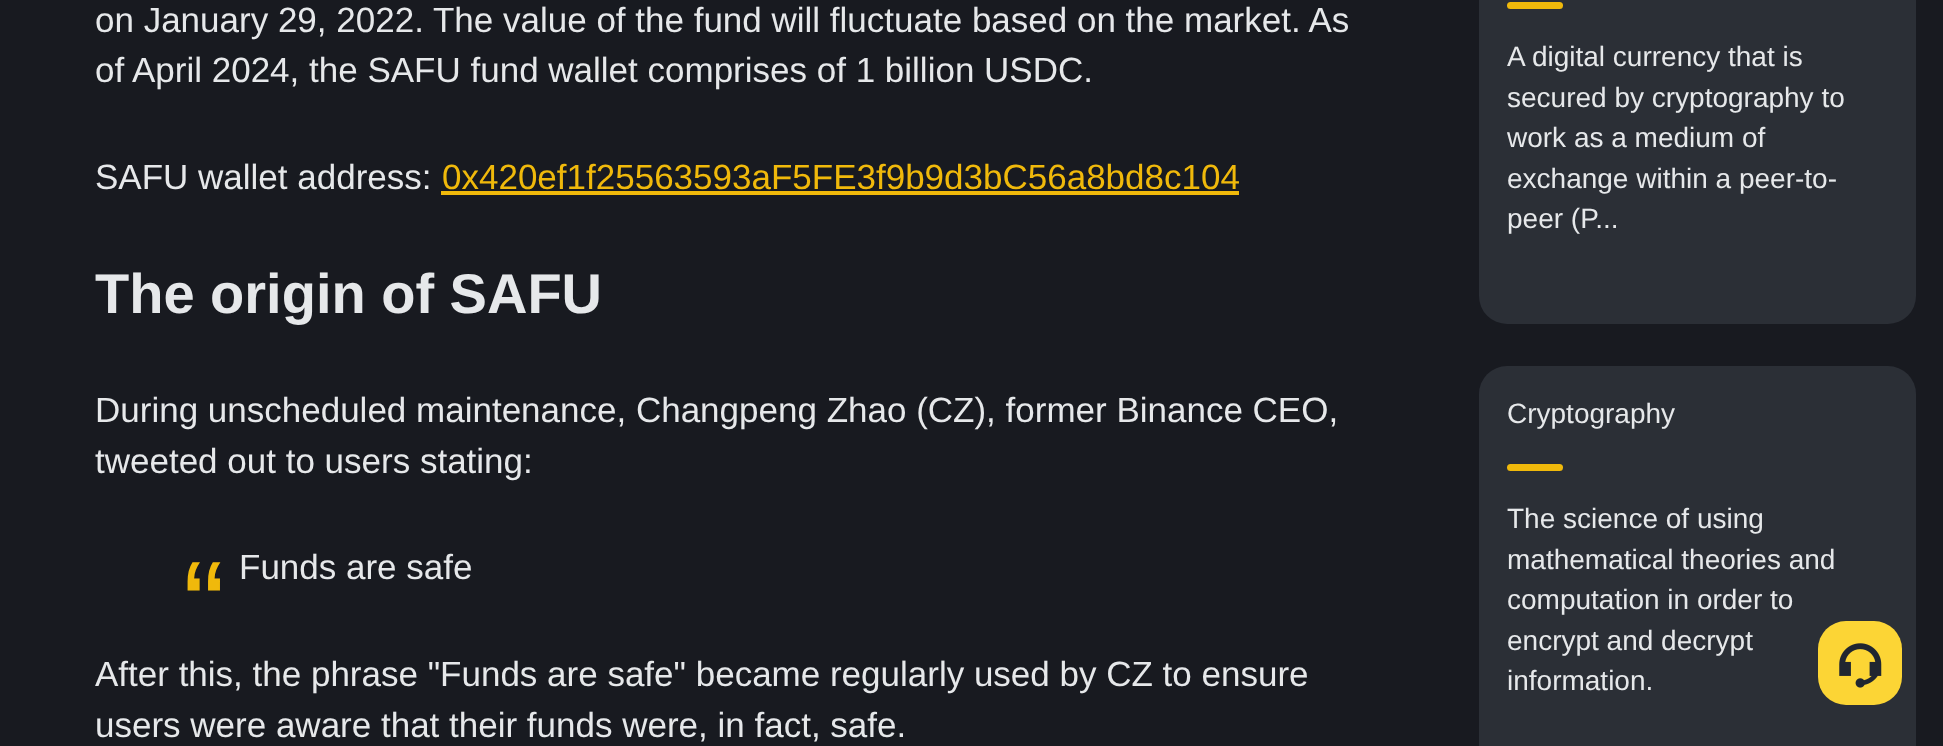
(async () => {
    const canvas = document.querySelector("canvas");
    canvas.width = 1943;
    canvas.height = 746;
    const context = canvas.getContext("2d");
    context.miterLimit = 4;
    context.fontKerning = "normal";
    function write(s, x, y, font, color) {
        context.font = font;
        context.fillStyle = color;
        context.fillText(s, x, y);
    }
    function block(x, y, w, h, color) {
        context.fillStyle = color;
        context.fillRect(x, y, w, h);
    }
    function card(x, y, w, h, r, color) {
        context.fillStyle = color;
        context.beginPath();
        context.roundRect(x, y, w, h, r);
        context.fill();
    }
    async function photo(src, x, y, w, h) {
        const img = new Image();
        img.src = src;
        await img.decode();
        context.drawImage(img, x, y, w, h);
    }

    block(0, 0, 1943, 746, "rgb(24, 26, 32)");
    write("on January 29, 2022. The value of the fund will fluctuate based on the market. As", 95, 32, "35px Liberation Sans", "rgb(230, 232, 234)");
    write("of April 2024, the SAFU fund wallet comprises of 1 billion USDC.", 95, 82, "35px Liberation Sans", "rgb(230, 232, 234)");
    write("SAFU wallet address:", 95, 189, "35px Liberation Sans", "rgb(230, 232, 234)");
    write("0x420ef1f25563593aF5FE3f9b9d3bC56a8bd8c104", 442, 189, "35px Liberation Sans", "rgb(240, 185, 11)");
    block(441, 191, 798, 4, "rgb(240, 185, 11)");
    write("The origin of SAFU", 95, 313, "bold 56px Liberation Sans", "rgb(230, 232, 234)");
    write("During unscheduled maintenance, Changpeng Zhao (CZ), former Binance CEO,", 95, 422, "35px Liberation Sans", "rgb(230, 232, 234)");
    write("tweeted out to users stating:", 95, 473, "35px Liberation Sans", "rgb(230, 232, 234)");
    write("“", 183, 649, "126px Liberation Sans", "rgb(240, 185, 11)");
    write("Funds are safe", 239, 579, "35px Liberation Sans", "rgb(230, 232, 234)");
    write("After this, the phrase \"Funds are safe\" became regularly used by CZ to ensure", 95, 686, "35px Liberation Sans", "rgb(230, 232, 234)");
    write("users were aware that their funds were, in fact, safe.", 95, 737, "35px Liberation Sans", "rgb(230, 232, 234)");
    card(1479, -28, 437, 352, 28, "rgb(43, 47, 54)");
    card(1507, 2, 56, 7, 3.5, "rgb(240, 185, 11)");
    write("A digital currency that is", 1507, 66, "28px Liberation Sans", "rgb(230, 232, 234)");
    write("secured by cryptography to", 1507, 107, "28px Liberation Sans", "rgb(230, 232, 234)");
    write("work as a medium of", 1507, 147, "28px Liberation Sans", "rgb(230, 232, 234)");
    write("exchange within a peer-to-", 1507, 188, "28px Liberation Sans", "rgb(230, 232, 234)");
    write("peer (P...", 1507, 228, "28px Liberation Sans", "rgb(230, 232, 234)");
    card(1479, 366, 437, 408, 28, "rgb(43, 47, 54)");
    write("Cryptography", 1507, 423, "28px Liberation Sans", "rgb(230, 232, 234)");
    card(1507, 464, 56, 7, 3.5, "rgb(240, 185, 11)");
    write("The science of using", 1507, 528, "28px Liberation Sans", "rgb(230, 232, 234)");
    write("mathematical theories and", 1507, 569, "28px Liberation Sans", "rgb(230, 232, 234)");
    write("computation in order to", 1507, 609, "28px Liberation Sans", "rgb(230, 232, 234)");
    write("encrypt and decrypt", 1507, 650, "28px Liberation Sans", "rgb(230, 232, 234)");
    write("information.", 1507, 690, "28px Liberation Sans", "rgb(230, 232, 234)");
    card(1818, 621, 84, 84, 28, "rgb(252, 213, 53)");
    await photo("media/1.png", 1839, 643, 43, 45);
})();
